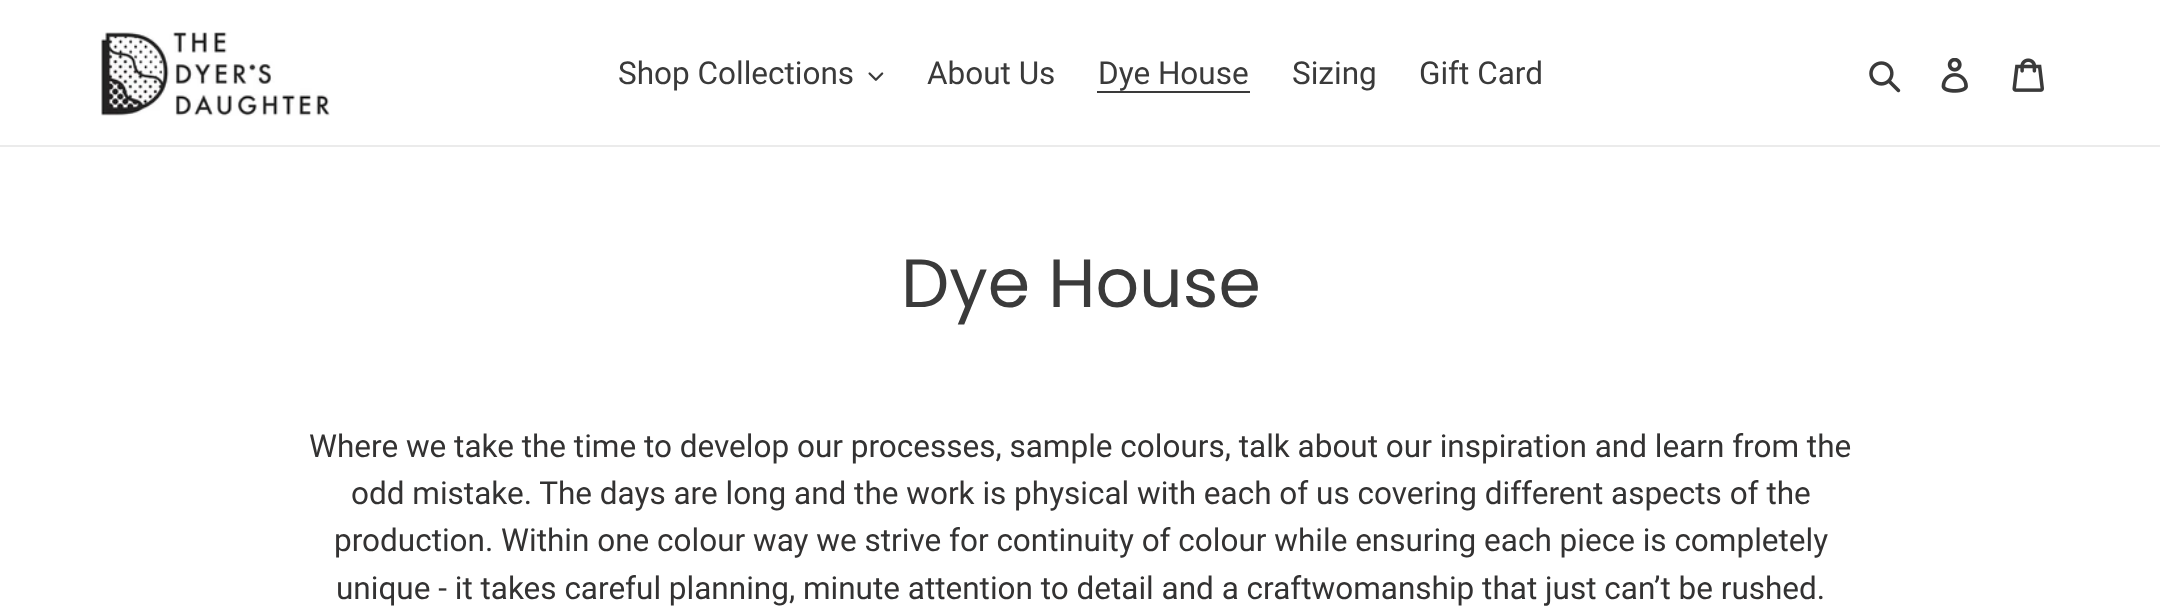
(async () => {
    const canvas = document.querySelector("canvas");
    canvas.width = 2160;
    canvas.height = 611;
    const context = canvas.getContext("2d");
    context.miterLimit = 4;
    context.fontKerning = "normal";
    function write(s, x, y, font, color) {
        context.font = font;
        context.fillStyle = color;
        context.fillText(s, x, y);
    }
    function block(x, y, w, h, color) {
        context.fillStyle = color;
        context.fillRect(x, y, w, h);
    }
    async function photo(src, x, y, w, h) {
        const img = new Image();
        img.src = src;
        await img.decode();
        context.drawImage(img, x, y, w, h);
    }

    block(0, 0, 2160, 611, "rgb(255, 255, 255)");
    block(0, 145, 2160, 2, "rgb(235, 235, 235)");
    await photo("media/1.png", 101, 32, 229, 84);
    write("Shop Collections", 618, 84, "31.5px Roboto", "rgb(58, 58, 58)");
    await photo("media/2.png", 868, 72, 16, 9);
    write("About Us", 927, 84, "31.5px Roboto", "rgb(58, 58, 58)");
    write("Dye House", 1098, 84, "31.5px Roboto", "rgb(58, 58, 58)");
    block(1097, 91, 153, 2, "rgb(58, 58, 58)");
    write("Sizing", 1292, 84, "31.5px Roboto", "rgb(58, 58, 58)");
    write("Gift Card", 1419, 84, "31.5px Roboto", "rgb(58, 58, 58)");
    await photo("media/3.png", 1869, 61, 32, 32);
    await photo("media/4.png", 1941, 58, 27, 35);
    await photo("media/5.png", 2012, 58, 32, 34);
    write("Dye House", 901, 307, "68.25px Poppins", "rgb(58, 58, 58)");
    write("Where we take the time to develop our processes, sample colours, talk about our inspiration and learn from the", 309, 457, "31.5px Roboto", "rgb(51, 50, 50)");
    write("odd mistake. The days are long and the work is physical with each of us covering different aspects of the", 351, 504, "31.5px Roboto", "rgb(51, 50, 50)");
    write("production. Within one colour way we strive for continuity of colour while ensuring each piece is completely", 334, 551, "31.5px Roboto", "rgb(51, 50, 50)");
    write("unique - it takes careful planning, minute attention to detail and a craftwomanship that just can’t be rushed.", 336, 599, "31.5px Roboto", "rgb(51, 50, 50)");
})();
